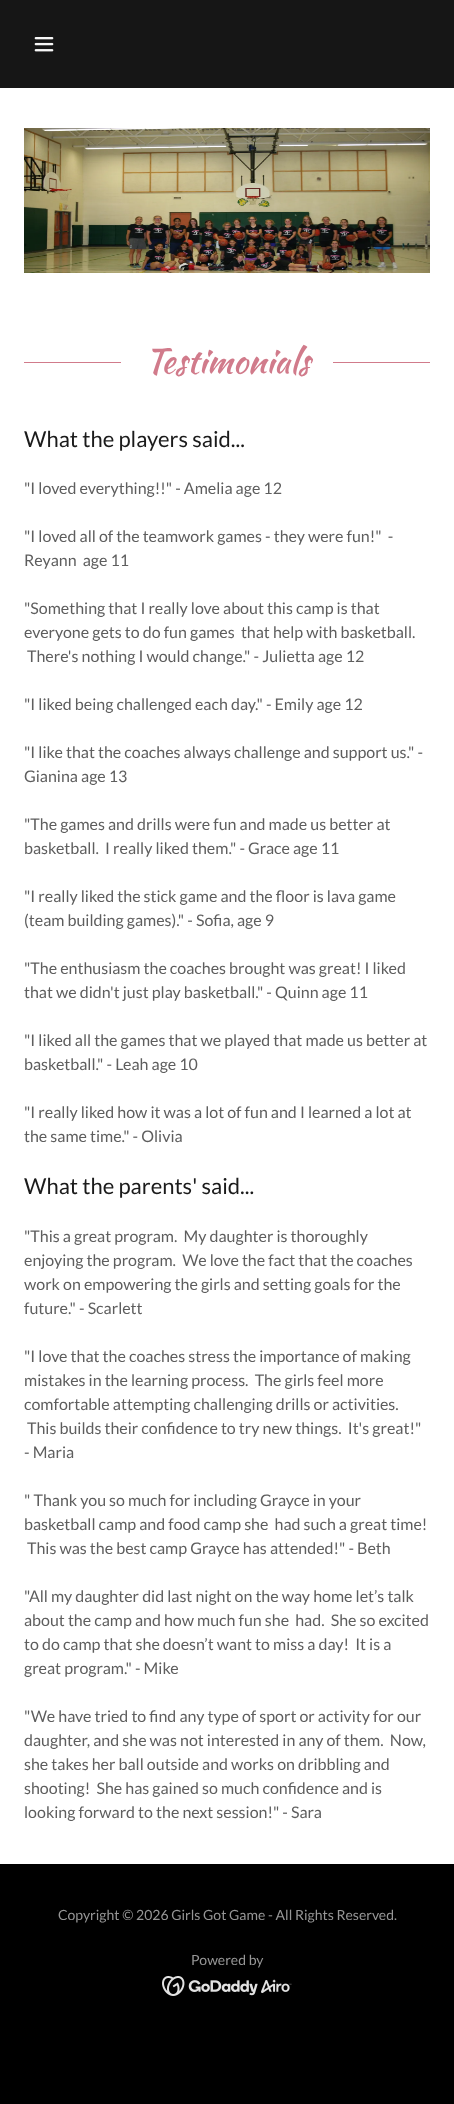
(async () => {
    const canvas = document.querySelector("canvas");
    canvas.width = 454;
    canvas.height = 2104;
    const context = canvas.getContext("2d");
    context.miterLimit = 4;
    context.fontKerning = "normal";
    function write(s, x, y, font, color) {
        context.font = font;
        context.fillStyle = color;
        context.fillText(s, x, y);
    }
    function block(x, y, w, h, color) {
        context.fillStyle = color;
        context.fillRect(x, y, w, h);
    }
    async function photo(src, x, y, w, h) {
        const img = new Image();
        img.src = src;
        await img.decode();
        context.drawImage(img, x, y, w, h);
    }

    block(0, 0, 454, 2104, "rgb(0, 0, 0)");
    block(0, 0, 454, 88, "rgb(22, 22, 22)");
    await photo("media/1.png", 34, 37, 20, 15);
    block(0, 88, 454, 1776, "rgb(255, 255, 255)");
    await photo("media/2.png", 24, 128, 406, 145);
    block(24, 362, 97, 1, "rgb(209, 123, 139)");
    write("Testimonials", 145, 373, "34px Kaushan Script", "rgb(209, 123, 139)");
    block(333, 362, 97, 1, "rgb(209, 123, 139)");
    write("What the players said...", 24, 447, "22px Lato", "rgb(27, 27, 27)");
    write("\"I loved everything!!\" - Amelia age 12", 24, 494, "16px Lato", "rgb(94, 94, 94)");
    write("\"I loved all of the teamwork games - they were fun!\"  -", 24, 542, "16px Lato", "rgb(94, 94, 94)");
    write("Reyann  age 11", 24, 566, "16px Lato", "rgb(94, 94, 94)");
    write("\"Something that I really love about this camp is that", 24, 614, "16px Lato", "rgb(94, 94, 94)");
    write("everyone gets to do fun games  that help with basketball.", 24, 638, "16px Lato", "rgb(94, 94, 94)");
    write("There's nothing I would change.\" - Julietta age 12", 27, 662, "16px Lato", "rgb(94, 94, 94)");
    write("\"I liked being challenged each day.\" - Emily age 12", 24, 710, "16px Lato", "rgb(94, 94, 94)");
    write("\"I like that the coaches always challenge and support us.\" -", 24, 758, "16px Lato", "rgb(94, 94, 94)");
    write("Gianina age 13", 24, 782, "16px Lato", "rgb(94, 94, 94)");
    write("\"The games and drills were fun and made us better at", 24, 830, "16px Lato", "rgb(94, 94, 94)");
    write("basketball.  I really liked them.\" - Grace age 11", 24, 854, "16px Lato", "rgb(94, 94, 94)");
    write("\"I really liked the stick game and the floor is lava game", 24, 902, "16px Lato", "rgb(94, 94, 94)");
    write("(team building games).\" - Sofia, age 9", 24, 926, "16px Lato", "rgb(94, 94, 94)");
    write("\"The enthusiasm the coaches brought was great! I liked", 24, 974, "16px Lato", "rgb(94, 94, 94)");
    write("that we didn't just play basketball.\" - Quinn age 11", 24, 998, "16px Lato", "rgb(94, 94, 94)");
    write("\"I liked all the games that we played that made us better at", 24, 1046, "16px Lato", "rgb(94, 94, 94)");
    write("basketball.\" - Leah age 10", 24, 1070, "16px Lato", "rgb(94, 94, 94)");
    write("\"I really liked how it was a lot of fun and I learned a lot at", 24, 1118, "16px Lato", "rgb(94, 94, 94)");
    write("the same time.\" - Olivia", 24, 1142, "16px Lato", "rgb(94, 94, 94)");
    write("What the parents' said...", 24, 1194, "22px Lato", "rgb(27, 27, 27)");
    write("\"This a great program.  My daughter is thoroughly", 24, 1242, "16px Lato", "rgb(94, 94, 94)");
    write("enjoying the program.  We love the fact that the coaches", 24, 1266, "16px Lato", "rgb(94, 94, 94)");
    write("work on empowering the girls and setting goals for the", 24, 1290, "16px Lato", "rgb(94, 94, 94)");
    write("future.\" - Scarlett", 24, 1314, "16px Lato", "rgb(94, 94, 94)");
    write("\"I love that the coaches stress the importance of making", 24, 1362, "16px Lato", "rgb(94, 94, 94)");
    write("mistakes in the learning process.  The girls feel more", 24, 1386, "16px Lato", "rgb(94, 94, 94)");
    write("comfortable attempting challenging drills or activities.", 24, 1410, "16px Lato", "rgb(94, 94, 94)");
    write("This builds their confidence to try new things.  It's great!\"", 27, 1434, "16px Lato", "rgb(94, 94, 94)");
    write("- Maria", 24, 1458, "16px Lato", "rgb(94, 94, 94)");
    write("\" Thank you so much for including Grayce in your", 24, 1506, "16px Lato", "rgb(94, 94, 94)");
    write("basketball camp and food camp she  had such a great time!", 24, 1530, "16px Lato", "rgb(94, 94, 94)");
    write("This was the best camp Grayce has attended!\" - Beth", 27, 1554, "16px Lato", "rgb(94, 94, 94)");
    write("\"All my daughter did last night on the way home let’s talk", 24, 1602, "16px Lato", "rgb(94, 94, 94)");
    write("about the camp and how much fun she  had.  She so excited", 24, 1626, "16px Lato", "rgb(94, 94, 94)");
    write("to do camp that she doesn’t want to miss a day!  It is a", 24, 1650, "16px Lato", "rgb(94, 94, 94)");
    write("great program.\" - Mike", 24, 1674, "16px Lato", "rgb(94, 94, 94)");
    write("\"We have tried to find any type of sport or activity for our", 24, 1722, "16px Lato", "rgb(94, 94, 94)");
    write("daughter, and she was not interested in any of them.  Now,", 24, 1746, "16px Lato", "rgb(94, 94, 94)");
    write("she takes her ball outside and works on dribbling and", 24, 1770, "16px Lato", "rgb(94, 94, 94)");
    write("shooting!  She has gained so much confidence and is", 24, 1794, "16px Lato", "rgb(94, 94, 94)");
    write("looking forward to the next session!\" - Sara", 24, 1818, "16px Lato", "rgb(94, 94, 94)");
    write("Copyright © 2026 Girls Got Game - All Rights Reserved.", 58, 1920, "14px Lato", "rgb(150, 150, 150)");
    write("Powered by", 191, 1965, "14px Lato", "rgb(150, 150, 150)");
    await photo("media/3.png", 162, 1976, 130, 20);
})();
